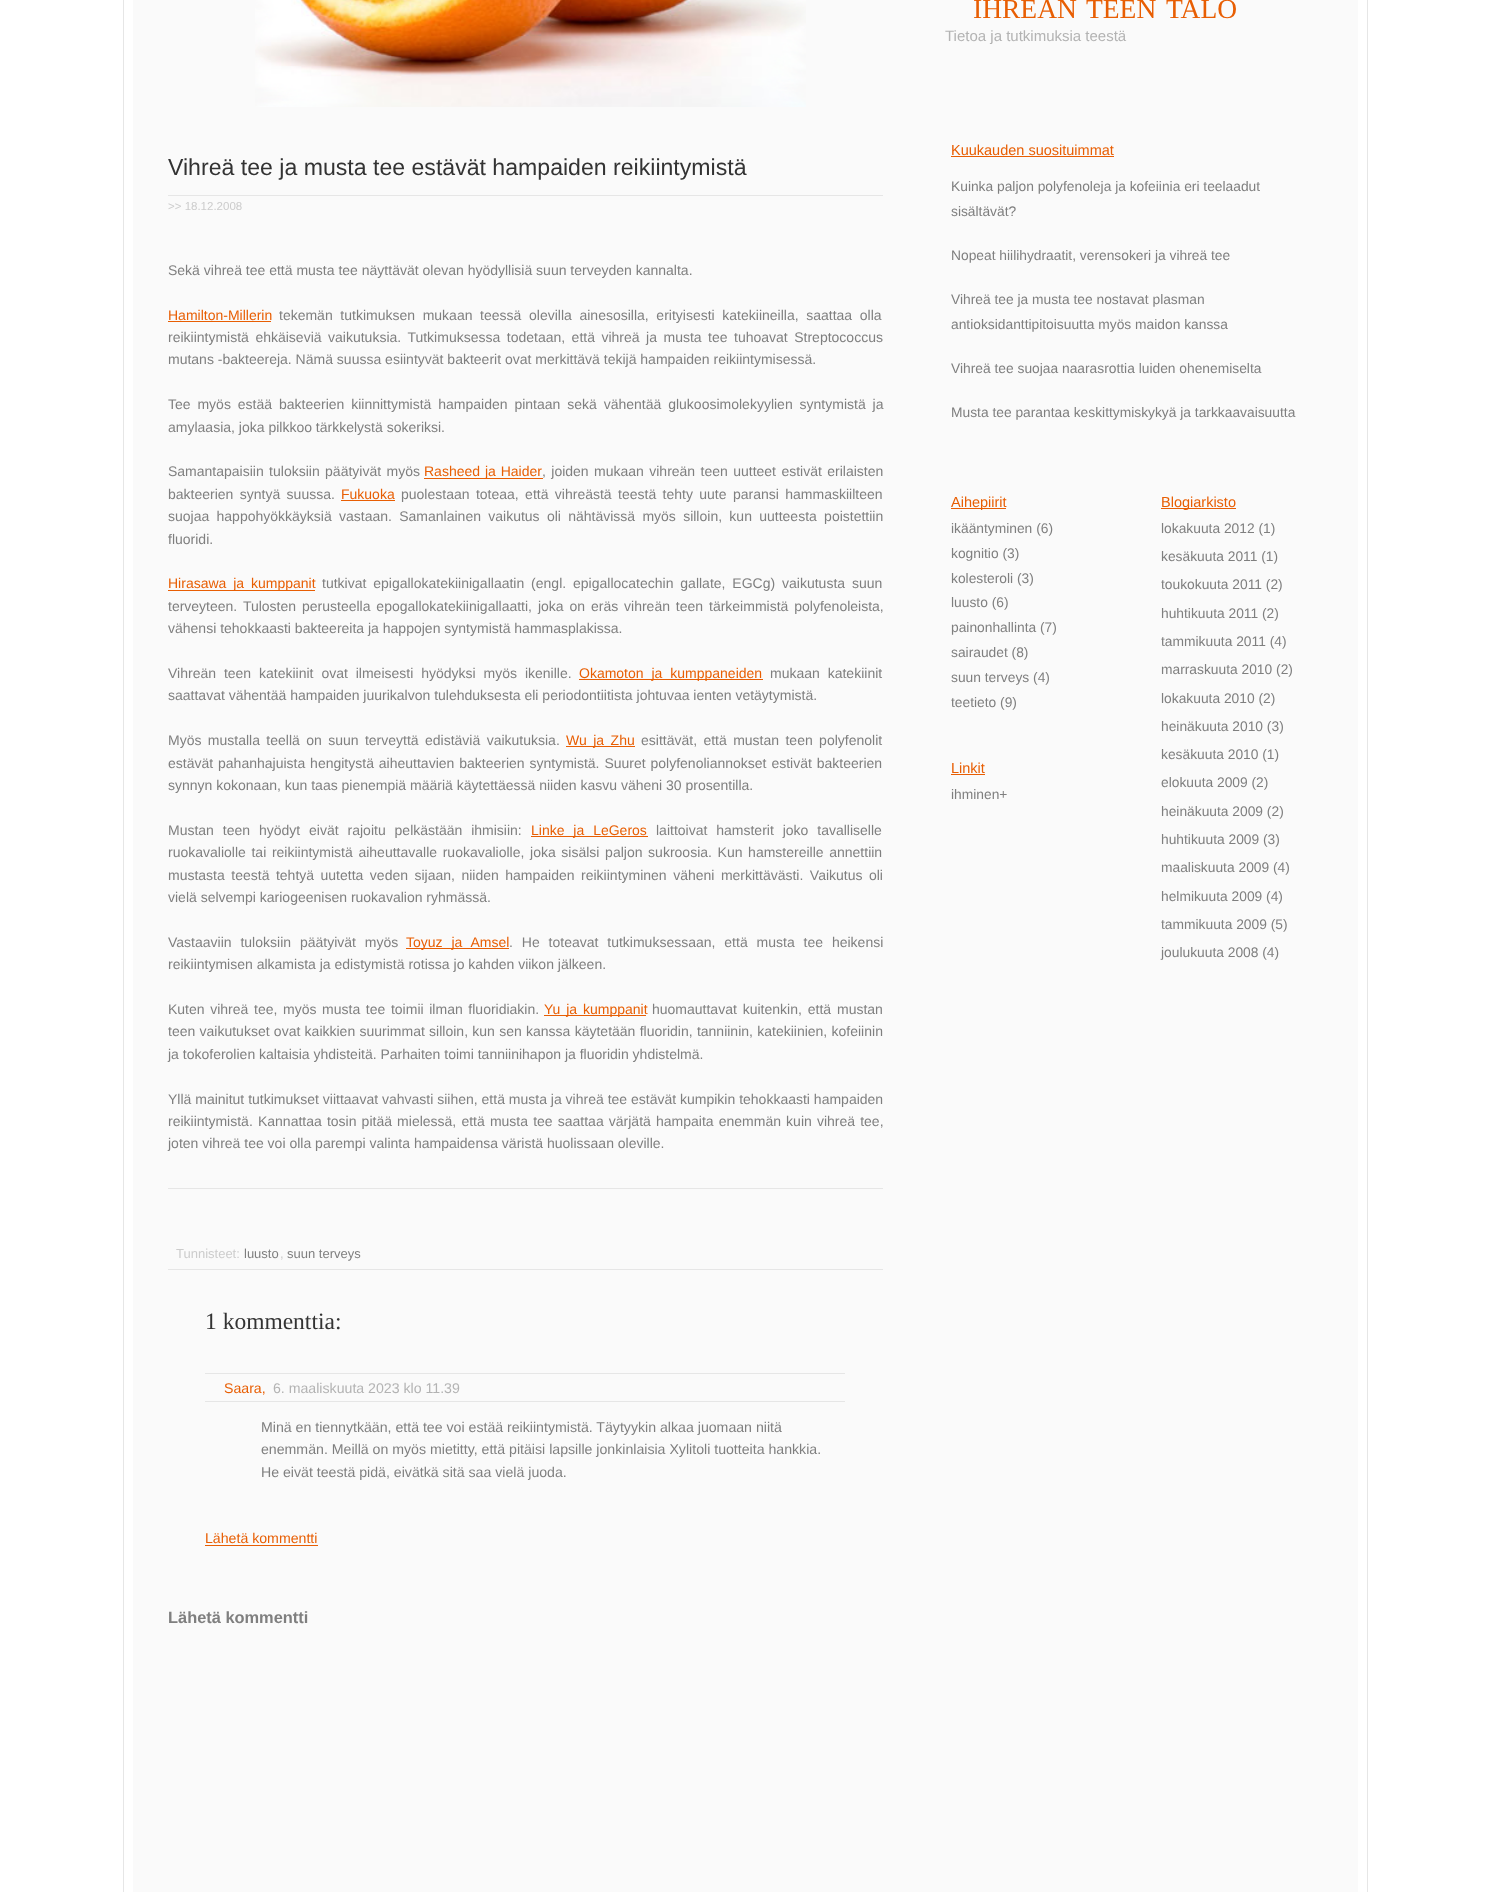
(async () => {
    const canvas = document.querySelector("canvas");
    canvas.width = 1489;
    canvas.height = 1892;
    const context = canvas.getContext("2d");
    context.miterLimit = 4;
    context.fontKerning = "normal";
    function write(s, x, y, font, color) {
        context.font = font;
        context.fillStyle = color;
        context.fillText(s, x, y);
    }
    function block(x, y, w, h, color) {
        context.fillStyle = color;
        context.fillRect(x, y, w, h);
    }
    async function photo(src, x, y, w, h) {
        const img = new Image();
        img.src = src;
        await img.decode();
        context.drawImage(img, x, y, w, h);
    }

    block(0, 0, 1489, 1892, "rgb(255, 255, 255)");
    context.strokeStyle = "rgb(230, 230, 230)";
    context.strokeRect(123.5, -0.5, 1244, 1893);
    block(133, 0, 1225, 1892, "rgb(250, 250, 250)");
    await photo("media/1.png", 255, 0, 551, 107);
    write("IHREÄN", 973, 18, "27.5px Liberation Serif", "rgb(232, 94, 3)");
    write("TEEN", 1086, 18, "27.5px Liberation Serif", "rgb(232, 94, 3)");
    write("TALO", 1166, 18, "27.5px Liberation Serif", "rgb(232, 94, 3)");
    write("Tietoa ja tutkimuksia teestä", 945, 41, "15px Liberation Sans", "rgb(179, 179, 179)");
    block(168, 195, 715, 1, "rgb(230, 230, 230)");
    write("Vihreä tee ja musta tee estävät hampaiden reikiintymistä", 168, 175, "23.1px Liberation Sans", "rgb(51, 51, 51)");
    write(">> 18.12.2008", 168, 210, "11.5px Liberation Sans", "rgb(204, 204, 204)");
    write("Sekä vihreä tee että musta tee näyttävät olevan hyödyllisiä suun terveyden kannalta.", 168, 275, "14px Liberation Sans", "rgb(127, 127, 127)");
    write("Hamilton-Millerin", 168, 320, "14px Liberation Sans", "rgb(232, 94, 3)");
    block(168, 321, 103, 1, "rgb(232, 94, 3)");
    context.wordSpacing = "3.75px";
    write("tekemän tutkimuksen mukaan teessä olevilla ainesosilla, erityisesti katekiineilla, saattaa olla", 279, 320, "14px Liberation Sans", "rgb(127, 127, 127)");
    context.wordSpacing = "2.6px";
    write("reikiintymistä ehkäiseviä vaikutuksia. Tutkimuksessa todetaan, että vihreä ja musta tee tuhoavat Streptococcus", 168, 342, "14px Liberation Sans", "rgb(127, 127, 127)");
    context.wordSpacing = "0px";
    write("mutans -bakteereja. Nämä suussa esiintyvät bakteerit ovat merkittävä tekijä hampaiden reikiintymisessä.", 168, 364, "14px Liberation Sans", "rgb(127, 127, 127)");
    context.wordSpacing = "3px";
    write("Tee myös estää bakteerien kiinnittymistä hampaiden pintaan sekä vähentää glukoosimolekyylien syntymistä ja", 168, 409, "14px Liberation Sans", "rgb(127, 127, 127)");
    context.wordSpacing = "0px";
    write("amylaasia, joka pilkkoo tärkkelystä sokeriksi.", 168, 432, "14px Liberation Sans", "rgb(127, 127, 127)");
    context.wordSpacing = "1.5px";
    write("Samantapaisiin tuloksiin päätyivät myös", 168, 476, "14px Liberation Sans", "rgb(127, 127, 127)");
    block(424, 478, 119, 1, "rgb(232, 94, 3)");
    context.wordSpacing = "1px";
    write("Rasheed ja Haider", 424, 476, "14px Liberation Sans", "rgb(232, 94, 3)");
    context.wordSpacing = "1.5px";
    write(", joiden mukaan vihreän teen uutteet estivät erilaisten", 542, 476, "14px Liberation Sans", "rgb(127, 127, 127)");
    context.wordSpacing = "2.5px";
    write("bakteerien syntyä suussa.", 168, 499, "14px Liberation Sans", "rgb(127, 127, 127)");
    context.wordSpacing = "0px";
    write("Fukuoka", 341, 499, "14px Liberation Sans", "rgb(232, 94, 3)");
    block(341, 500, 54, 1, "rgb(232, 94, 3)");
    context.wordSpacing = "2.5px";
    write("puolestaan toteaa, että vihreästä teestä tehty uute paransi hammaskiilteen", 401, 499, "14px Liberation Sans", "rgb(127, 127, 127)");
    context.wordSpacing = "3.4px";
    write("suojaa happohyökkäyksiä vastaan. Samanlainen vaikutus oli nähtävissä myös silloin, kun uutteesta poistettiin", 168, 521, "14px Liberation Sans", "rgb(127, 127, 127)");
    context.wordSpacing = "0px";
    write("fluoridi.", 168, 544, "14px Liberation Sans", "rgb(127, 127, 127)");
    block(168, 590, 147, 1, "rgb(232, 94, 3)");
    context.wordSpacing = "3px";
    write("Hirasawa ja kumppanit", 168, 588, "14px Liberation Sans", "rgb(232, 94, 3)");
    write("tutkivat epigallokatekiinigallaatin (engl. epigallocatechin gallate, EGCg) vaikutusta suun", 322, 588, "14px Liberation Sans", "rgb(127, 127, 127)");
    context.wordSpacing = "2px";
    write("terveyteen. Tulosten perusteella epogallokatekiinigallaatti, joka on eräs vihreän teen tärkeimmistä polyfenoleista,", 168, 611, "14px Liberation Sans", "rgb(127, 127, 127)");
    context.wordSpacing = "0px";
    write("vähensi tehokkaasti bakteereita ja happojen syntymistä hammasplakissa.", 168, 633, "14px Liberation Sans", "rgb(127, 127, 127)");
    context.wordSpacing = "4px";
    write("Vihreän teen katekiinit ovat ilmeisesti hyödyksi myös ikenille.", 168, 678, "14px Liberation Sans", "rgb(127, 127, 127)");
    block(579, 679, 184, 1, "rgb(232, 94, 3)");
    write("Okamoton ja kumppaneiden", 579, 678, "14px Liberation Sans", "rgb(232, 94, 3)");
    write("mukaan katekiinit", 770, 678, "14px Liberation Sans", "rgb(127, 127, 127)");
    context.wordSpacing = "0px";
    write("saattavat vähentää hampaiden juurikalvon tulehduksesta eli periodontiitista johtuvaa ienten vetäytymistä.", 168, 700, "14px Liberation Sans", "rgb(127, 127, 127)");
    context.wordSpacing = "2.5px";
    write("Myös mustalla teellä on suun terveyttä edistäviä vaikutuksia.", 168, 745, "14px Liberation Sans", "rgb(127, 127, 127)");
    block(566, 746, 69, 1, "rgb(232, 94, 3)");
    context.wordSpacing = "2.6px";
    write("Wu ja Zhu", 566, 745, "14px Liberation Sans", "rgb(232, 94, 3)");
    context.wordSpacing = "2.5px";
    write("esittävät, että mustan teen polyfenolit", 641, 745, "14px Liberation Sans", "rgb(127, 127, 127)");
    context.wordSpacing = "1px";
    write("estävät pahanhajuista hengitystä aiheuttavien bakteerien syntymistä. Suuret polyfenoliannokset estivät bakteerien", 168, 768, "14px Liberation Sans", "rgb(127, 127, 127)");
    context.wordSpacing = "0px";
    write("synnyn kokonaan, kun taas pienempiä määriä käytettäessä niiden kasvu väheni 30 prosentilla.", 168, 790, "14px Liberation Sans", "rgb(127, 127, 127)");
    context.wordSpacing = "5px";
    write("Mustan teen hyödyt eivät rajoitu pelkästään ihmisiin:", 168, 835, "14px Liberation Sans", "rgb(127, 127, 127)");
    block(531, 836, 117, 1, "rgb(232, 94, 3)");
    write("Linke ja LeGeros", 531, 835, "14px Liberation Sans", "rgb(232, 94, 3)");
    write("laittoivat hamsterit joko tavalliselle", 656, 835, "14px Liberation Sans", "rgb(127, 127, 127)");
    context.wordSpacing = "1.75px";
    write("ruokavaliolle tai reikiintymistä aiheuttavalle ruokavaliolle, joka sisälsi paljon sukroosia. Kun hamstereille annettiin", 168, 857, "14px Liberation Sans", "rgb(127, 127, 127)");
    context.wordSpacing = "2.6px";
    write("mustasta teestä tehtyä uutetta veden sijaan, niiden hampaiden reikiintyminen väheni merkittävästi. Vaikutus oli", 168, 880, "14px Liberation Sans", "rgb(127, 127, 127)");
    context.wordSpacing = "0px";
    write("vielä selvempi kariogeenisen ruokavalion ryhmässä.", 168, 902, "14px Liberation Sans", "rgb(127, 127, 127)");
    context.wordSpacing = "5px";
    write("Vastaaviin tuloksiin päätyivät myös", 168, 947, "14px Liberation Sans", "rgb(127, 127, 127)");
    block(406, 948, 103, 1, "rgb(232, 94, 3)");
    write("Toyuz ja Amsel", 406, 947, "14px Liberation Sans", "rgb(232, 94, 3)");
    write(". He toteavat tutkimuksessaan, että musta tee heikensi", 509, 947, "14px Liberation Sans", "rgb(127, 127, 127)");
    context.wordSpacing = "0px";
    write("reikiintymisen alkamista ja edistymistä rotissa jo kahden viikon jälkeen.", 168, 969, "14px Liberation Sans", "rgb(127, 127, 127)");
    context.wordSpacing = "1.75px";
    write("Kuten vihreä tee, myös musta tee toimii ilman fluoridiakin.", 168, 1014, "14px Liberation Sans", "rgb(127, 127, 127)");
    block(544, 1015, 102, 1, "rgb(232, 94, 3)");
    context.wordSpacing = "2px";
    write("Yu ja kumppanit", 544, 1014, "14px Liberation Sans", "rgb(232, 94, 3)");
    write("huomauttavat kuitenkin, että mustan", 652, 1014, "14px Liberation Sans", "rgb(127, 127, 127)");
    context.wordSpacing = "0.4px";
    write("teen vaikutukset ovat kaikkien suurimmat silloin, kun sen kanssa käytetään fluoridin, tanniinin, katekiinien, kofeiinin", 168, 1036, "14px Liberation Sans", "rgb(127, 127, 127)");
    context.wordSpacing = "0px";
    write("ja tokoferolien kaltaisia yhdisteitä. Parhaiten toimi tanniinihapon ja fluoridin yhdistelmä.", 168, 1059, "14px Liberation Sans", "rgb(127, 127, 127)");
    write("Yllä mainitut tutkimukset viittaavat vahvasti siihen, että musta ja vihreä tee estävät kumpikin tehokkaasti hampaiden", 168, 1104, "14px Liberation Sans", "rgb(127, 127, 127)");
    context.wordSpacing = "1.25px";
    write("reikiintymistä. Kannattaa tosin pitää mielessä, että musta tee saattaa värjätä hampaita enemmän kuin vihreä tee,", 168, 1126, "14px Liberation Sans", "rgb(127, 127, 127)");
    context.wordSpacing = "0px";
    write("joten vihreä tee voi olla parempi valinta hampaidensa väristä huolissaan oleville.", 168, 1148, "14px Liberation Sans", "rgb(127, 127, 127)");
    block(168, 1188, 715, 1, "rgb(230, 230, 230)");
    block(168, 1269, 715, 1, "rgb(230, 230, 230)");
    write("Tunnisteet:", 176, 1258, "13px Liberation Sans", "rgb(204, 204, 204)");
    write("luusto", 244, 1258, "13px Liberation Sans", "rgb(127, 127, 127)");
    write(",", 280, 1258, "13px Liberation Sans", "rgb(204, 204, 204)");
    write("suun terveys", 287, 1258, "13px Liberation Sans", "rgb(127, 127, 127)");
    write("1 kommenttia:", 205, 1329, "23.5px Liberation Serif", "rgb(51, 51, 51)");
    block(205, 1373, 640, 1, "rgb(230, 230, 230)");
    block(205, 1401, 640, 1, "rgb(230, 230, 230)");
    write("Saara,", 224, 1393, "14.15px Liberation Sans", "rgb(232, 94, 3)");
    write("6. maaliskuuta 2023 klo 11.39", 273, 1393, "14.15px Liberation Sans", "rgb(179, 179, 179)");
    write("Minä en tiennytkään, että tee voi estää reikiintymistä. Täytyykin alkaa juomaan niitä", 261, 1432, "14.15px Liberation Sans", "rgb(127, 127, 127)");
    write("enemmän. Meillä on myös mietitty, että pitäisi lapsille jonkinlaisia Xylitoli tuotteita hankkia.", 261, 1454, "14.15px Liberation Sans", "rgb(127, 127, 127)");
    write("He eivät teestä pidä, eivätkä sitä saa vielä juoda.", 261, 1477, "14.15px Liberation Sans", "rgb(127, 127, 127)");
    write("Lähetä kommentti", 205, 1543, "14.15px Liberation Sans", "rgb(232, 94, 3)");
    block(205, 1545, 113, 1, "rgb(232, 94, 3)");
    write("Lähetä kommentti", 168, 1623, "bold 16.4px Liberation Sans", "rgb(127, 127, 127)");
    write("Kuukauden suosituimmat", 951, 155, "14.5px Liberation Sans", "rgb(232, 94, 3)");
    block(951, 156, 163, 1, "rgb(232, 94, 3)");
    write("Kuinka paljon polyfenoleja ja kofeiinia eri teelaadut", 951, 191, "13.8px Liberation Sans", "rgb(127, 127, 127)");
    write("sisältävät?", 951, 216, "13.8px Liberation Sans", "rgb(127, 127, 127)");
    write("Nopeat hiilihydraatit, verensokeri ja vihreä tee", 951, 260, "13.8px Liberation Sans", "rgb(127, 127, 127)");
    write("Vihreä tee ja musta tee nostavat plasman", 951, 304, "13.8px Liberation Sans", "rgb(127, 127, 127)");
    write("antioksidanttipitoisuutta myös maidon kanssa", 951, 329, "13.8px Liberation Sans", "rgb(127, 127, 127)");
    write("Vihreä tee suojaa naarasrottia luiden ohenemiselta", 951, 373, "13.8px Liberation Sans", "rgb(127, 127, 127)");
    write("Musta tee parantaa keskittymiskykyä ja tarkkaavaisuutta", 951, 417, "13.8px Liberation Sans", "rgb(127, 127, 127)");
    block(951, 508, 55, 1, "rgb(232, 94, 3)");
    write("Aihepiirit", 951, 507, "14.5px Liberation Sans", "rgb(232, 94, 3)");
    write("ikääntyminen (6)", 951, 533, "13.8px Liberation Sans", "rgb(127, 127, 127)");
    write("kognitio (3)", 951, 558, "13.8px Liberation Sans", "rgb(127, 127, 127)");
    write("kolesteroli (3)", 951, 583, "13.8px Liberation Sans", "rgb(127, 127, 127)");
    write("luusto (6)", 951, 607, "13.8px Liberation Sans", "rgb(127, 127, 127)");
    write("painonhallinta (7)", 951, 632, "13.8px Liberation Sans", "rgb(127, 127, 127)");
    write("sairaudet (8)", 951, 657, "13.8px Liberation Sans", "rgb(127, 127, 127)");
    write("suun terveys (4)", 951, 682, "13.8px Liberation Sans", "rgb(127, 127, 127)");
    write("teetieto (9)", 951, 707, "13.8px Liberation Sans", "rgb(127, 127, 127)");
    write("Linkit", 951, 773, "14.5px Liberation Sans", "rgb(232, 94, 3)");
    block(951, 774, 34, 1, "rgb(232, 94, 3)");
    write("ihminen+", 951, 799, "13.8px Liberation Sans", "rgb(127, 127, 127)");
    block(1161, 508, 75, 1, "rgb(232, 94, 3)");
    write("Blogiarkisto", 1161, 507, "14.5px Liberation Sans", "rgb(232, 94, 3)");
    write("lokakuuta 2012 (1)", 1161, 533, "13.8px Liberation Sans", "rgb(127, 127, 127)");
    write("kesäkuuta 2011 (1)", 1161, 561, "13.8px Liberation Sans", "rgb(127, 127, 127)");
    write("toukokuuta 2011 (2)", 1161, 589, "13.8px Liberation Sans", "rgb(127, 127, 127)");
    write("huhtikuuta 2011 (2)", 1161, 618, "13.8px Liberation Sans", "rgb(127, 127, 127)");
    write("tammikuuta 2011 (4)", 1161, 646, "13.8px Liberation Sans", "rgb(127, 127, 127)");
    write("marraskuuta 2010 (2)", 1161, 674, "13.8px Liberation Sans", "rgb(127, 127, 127)");
    write("lokakuuta 2010 (2)", 1161, 703, "13.8px Liberation Sans", "rgb(127, 127, 127)");
    write("heinäkuuta 2010 (3)", 1161, 731, "13.8px Liberation Sans", "rgb(127, 127, 127)");
    write("kesäkuuta 2010 (1)", 1161, 759, "13.8px Liberation Sans", "rgb(127, 127, 127)");
    write("elokuuta 2009 (2)", 1161, 787, "13.8px Liberation Sans", "rgb(127, 127, 127)");
    write("heinäkuuta 2009 (2)", 1161, 816, "13.8px Liberation Sans", "rgb(127, 127, 127)");
    write("huhtikuuta 2009 (3)", 1161, 844, "13.8px Liberation Sans", "rgb(127, 127, 127)");
    write("maaliskuuta 2009 (4)", 1161, 872, "13.8px Liberation Sans", "rgb(127, 127, 127)");
    write("helmikuuta 2009 (4)", 1161, 901, "13.8px Liberation Sans", "rgb(127, 127, 127)");
    write("tammikuuta 2009 (5)", 1161, 929, "13.8px Liberation Sans", "rgb(127, 127, 127)");
    write("joulukuuta 2008 (4)", 1161, 957, "13.8px Liberation Sans", "rgb(127, 127, 127)");
})();
